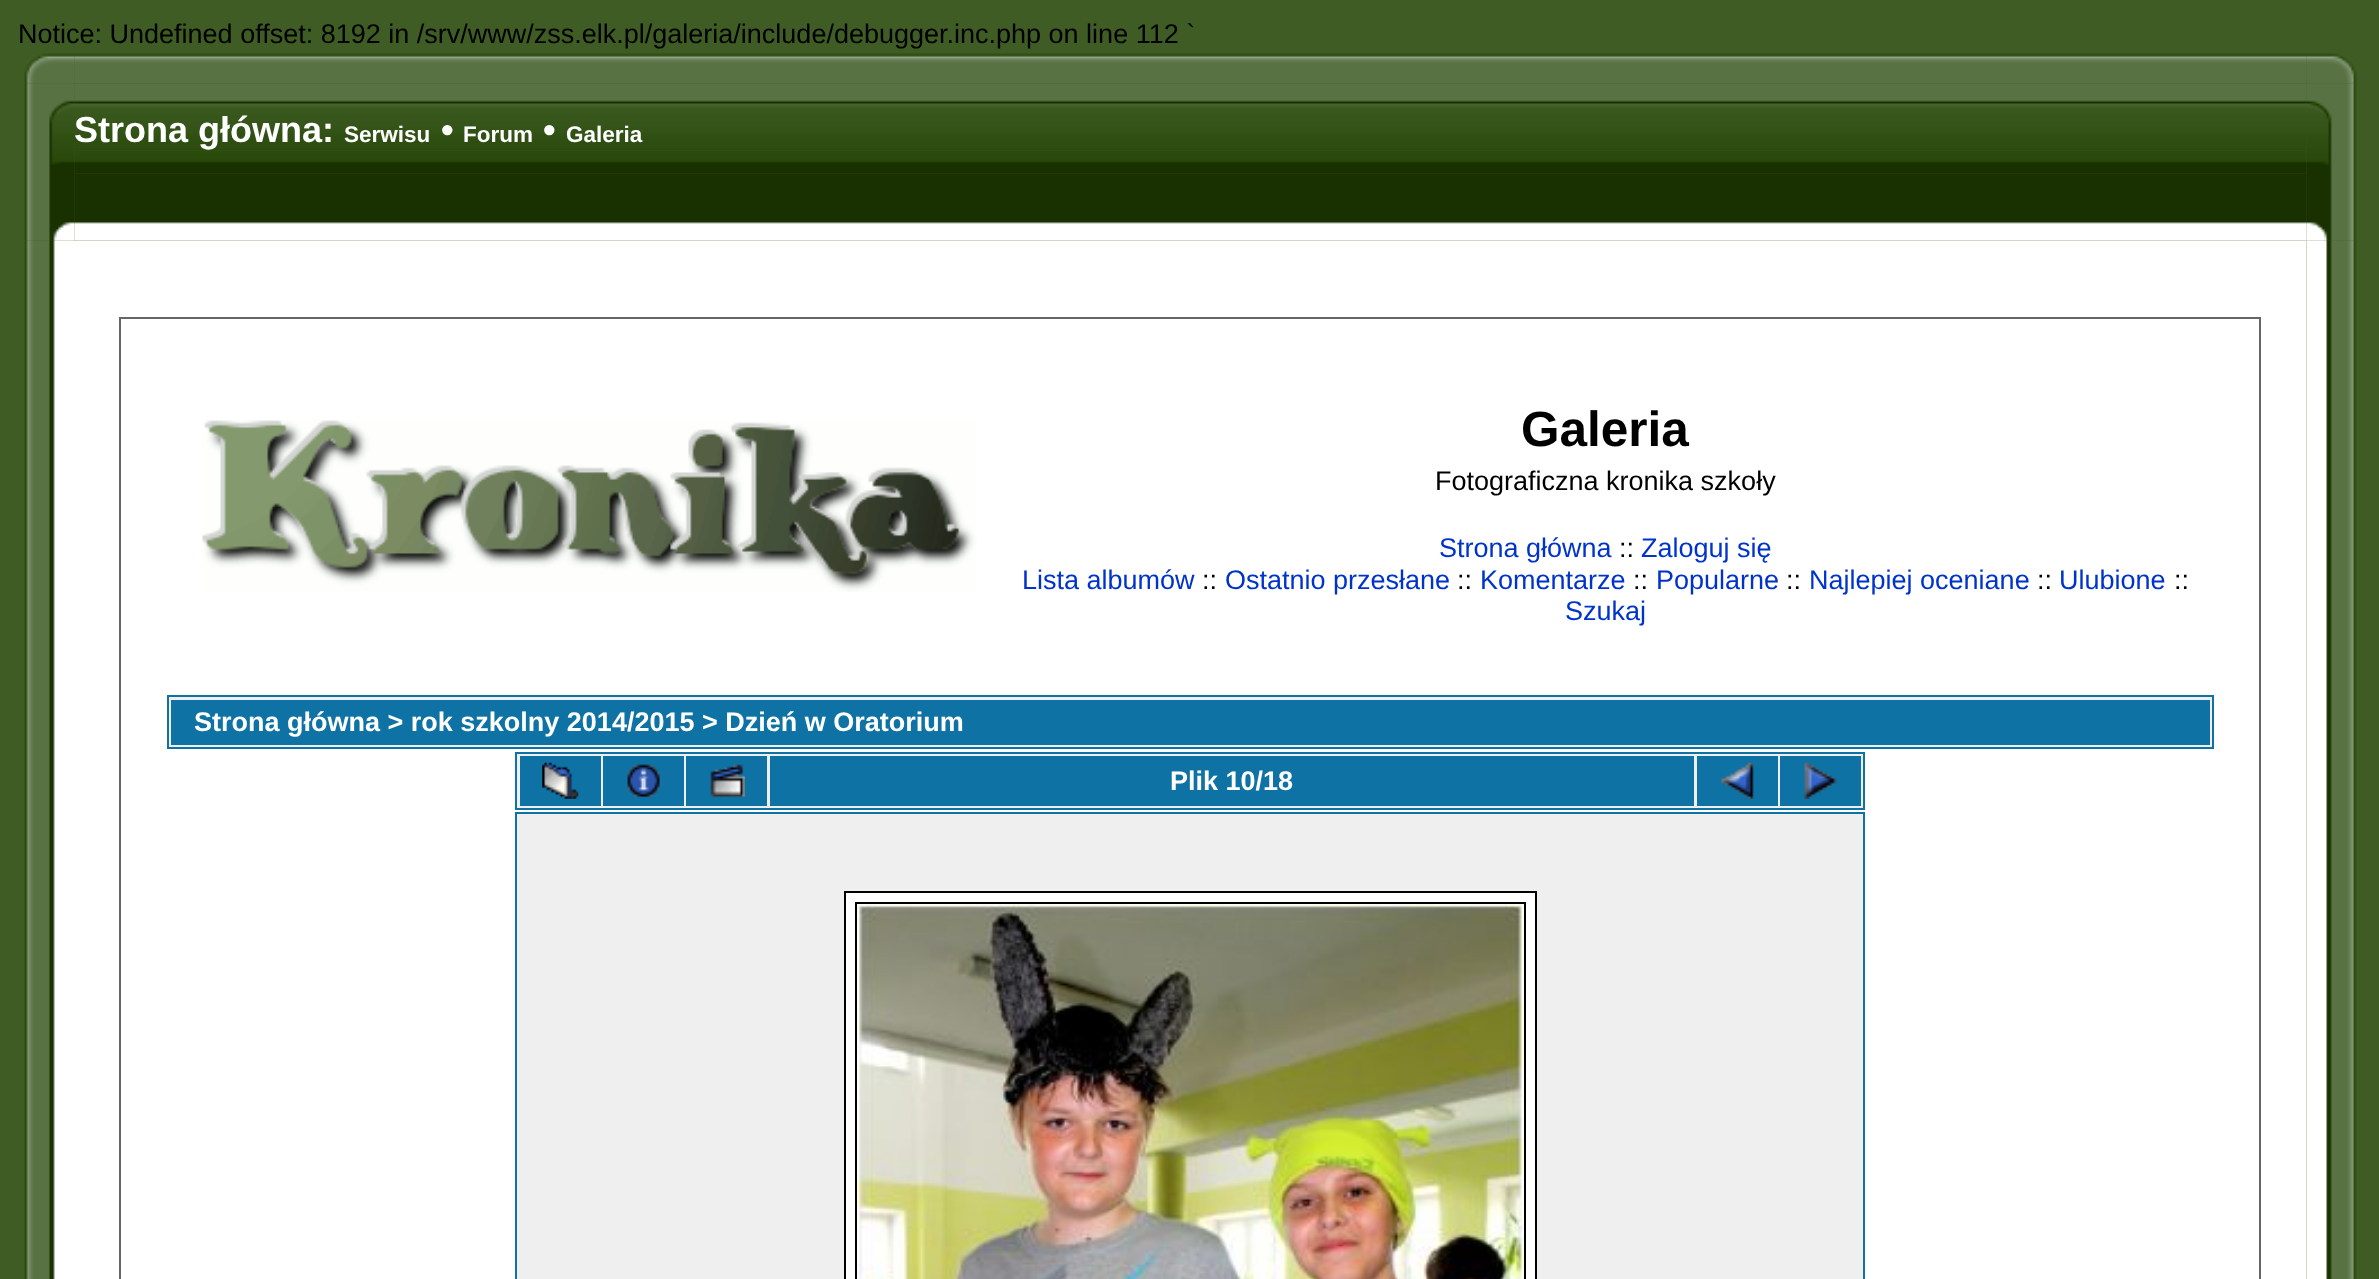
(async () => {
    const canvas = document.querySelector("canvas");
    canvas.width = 2379;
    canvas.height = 1279;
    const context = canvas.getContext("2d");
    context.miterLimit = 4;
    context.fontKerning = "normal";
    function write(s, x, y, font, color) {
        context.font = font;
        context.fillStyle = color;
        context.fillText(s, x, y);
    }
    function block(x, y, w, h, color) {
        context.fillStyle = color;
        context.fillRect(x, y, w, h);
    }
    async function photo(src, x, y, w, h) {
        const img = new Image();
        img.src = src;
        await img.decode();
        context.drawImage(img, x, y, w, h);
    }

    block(0, 0, 2379, 1279, "rgb(62, 92, 35)");
    write("Notice: Undefined offset: 8192 in /srv/www/zss.elk.pl/galeria/include/debugger.inc.php on line 112 `", 18, 43, "27px Liberation Sans", "rgb(0, 0, 0)");
    await photo("media/1.png", 24, 53, 51, 28);
    await photo("media/2.png", 74, 53, 2233, 28);
    await photo("media/3.png", 2306, 53, 51, 28);
    await photo("media/4.png", 24, 81, 51, 3);
    block(74, 81, 2232, 2, "rgb(88, 114, 67)");
    await photo("media/5.png", 2306, 81, 51, 3);
    await photo("media/6.png", 24, 83, 51, 158);
    await photo("media/7.png", 74, 83, 2233, 68);
    write("Strona główna:", 74, 142, "bold 36px Liberation Sans", "rgb(255, 255, 255)");
    write("Serwisu", 344, 142, "bold 22.5px Liberation Sans", "rgb(255, 255, 255)");
    write("•", 441, 142, "bold 36px Liberation Sans", "rgb(255, 255, 255)");
    write("Forum", 463, 142, "bold 22.5px Liberation Sans", "rgb(255, 255, 255)");
    write("•", 543, 142, "bold 36px Liberation Sans", "rgb(255, 255, 255)");
    write("Galeria", 566, 142, "bold 22.5px Liberation Sans", "rgb(255, 255, 255)");
    await photo("media/8.png", 2306, 83, 51, 158);
    await photo("media/9.png", 74, 151, 2232, 23);
    await photo("media/10.png", 74, 173, 2233, 68);
    await photo("media/11.png", 24, 240, 51, 1039);
    block(74, 241, 2232, 1038, "rgb(255, 255, 255)");
    context.strokeStyle = "rgb(102, 102, 102)";
    context.lineWidth = 2;
    context.strokeRect(120, 318, 2140, 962);
    await photo("media/12.png", 202, 420, 775, 172);
    write("Galeria", 1521, 446, "bold 49.5px Liberation Sans", "rgb(0, 0, 0)");
    write("Fotograficzna kronika szkoły", 1435, 490, "27px Liberation Sans", "rgb(0, 0, 0)");
    write("Strona główna", 1439, 557, "27px Liberation Sans", "rgb(0, 51, 204)");
    write("::", 1619, 557, "27px Liberation Sans", "rgb(0, 0, 0)");
    write("Zaloguj się", 1641, 557, "27px Liberation Sans", "rgb(0, 51, 204)");
    write("Lista albumów", 1022, 589, "27px Liberation Sans", "rgb(0, 51, 204)");
    write("::", 1202, 589, "27px Liberation Sans", "rgb(0, 0, 0)");
    write("Ostatnio przesłane", 1225, 589, "27px Liberation Sans", "rgb(0, 51, 204)");
    write("::", 1457, 589, "27px Liberation Sans", "rgb(0, 0, 0)");
    write("Komentarze", 1480, 589, "27px Liberation Sans", "rgb(0, 51, 204)");
    write("::", 1633, 589, "27px Liberation Sans", "rgb(0, 0, 0)");
    write("Popularne", 1656, 589, "27px Liberation Sans", "rgb(0, 51, 204)");
    write("::", 1786, 589, "27px Liberation Sans", "rgb(0, 0, 0)");
    write("Najlepiej oceniane", 1809, 589, "27px Liberation Sans", "rgb(0, 51, 204)");
    write("::", 2037, 589, "27px Liberation Sans", "rgb(0, 0, 0)");
    write("Ulubione", 2059, 589, "27px Liberation Sans", "rgb(0, 51, 204)");
    write("::", 2174, 589, "27px Liberation Sans", "rgb(0, 0, 0)");
    write("Szukaj", 1565, 620, "27px Liberation Sans", "rgb(0, 51, 204)");
    context.fillStyle = "rgb(239, 239, 239)";
    context.beginPath();
    context.rect(168, 696, 2045, 52);
    context.fill();
    context.strokeStyle = "rgb(14, 114, 164)";
    context.stroke();
    block(171, 700, 2039, 45, "rgb(14, 114, 164)");
    write("Strona główna > rok szkolny 2014/2015 > Dzień w Oratorium", 194, 731, "bold 27px Liberation Sans", "rgb(255, 255, 255)");
    context.fillStyle = "rgb(239, 239, 239)";
    context.beginPath();
    context.rect(516, 753, 1348, 56);
    context.fill();
    context.stroke();
    block(520, 756, 81, 50, "rgb(14, 114, 164)");
    await photo("media/13.png", 542, 762, 37, 37);
    block(603, 756, 81, 50, "rgb(14, 114, 164)");
    await photo("media/14.png", 627, 764, 33, 34);
    block(686, 756, 81, 50, "rgb(14, 114, 164)");
    await photo("media/15.png", 710, 764, 35, 34);
    block(770, 756, 924, 50, "rgb(14, 114, 164)");
    write("Plik 10/18", 1170, 790, "bold 27px Liberation Sans", "rgb(255, 255, 255)");
    block(1697, 756, 81, 50, "rgb(14, 114, 164)");
    await photo("media/16.png", 1720, 762, 34, 37);
    block(1780, 756, 81, 50, "rgb(14, 114, 164)");
    await photo("media/17.png", 1804, 762, 33, 37);
    context.fillStyle = "rgb(239, 239, 239)";
    context.beginPath();
    context.rect(516, 813, 1348, 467);
    context.fill();
    context.stroke();
    context.fillStyle = "rgb(255, 255, 255)";
    context.beginPath();
    context.rect(845, 892, 691, 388);
    context.fill();
    context.strokeStyle = "rgb(0, 0, 0)";
    context.stroke();
    context.strokeRect(856, 903, 669, 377);
    await photo("media/18.png", 857, 904, 667, 375);
    await photo("media/19.png", 2306, 240, 51, 1039);
})();
